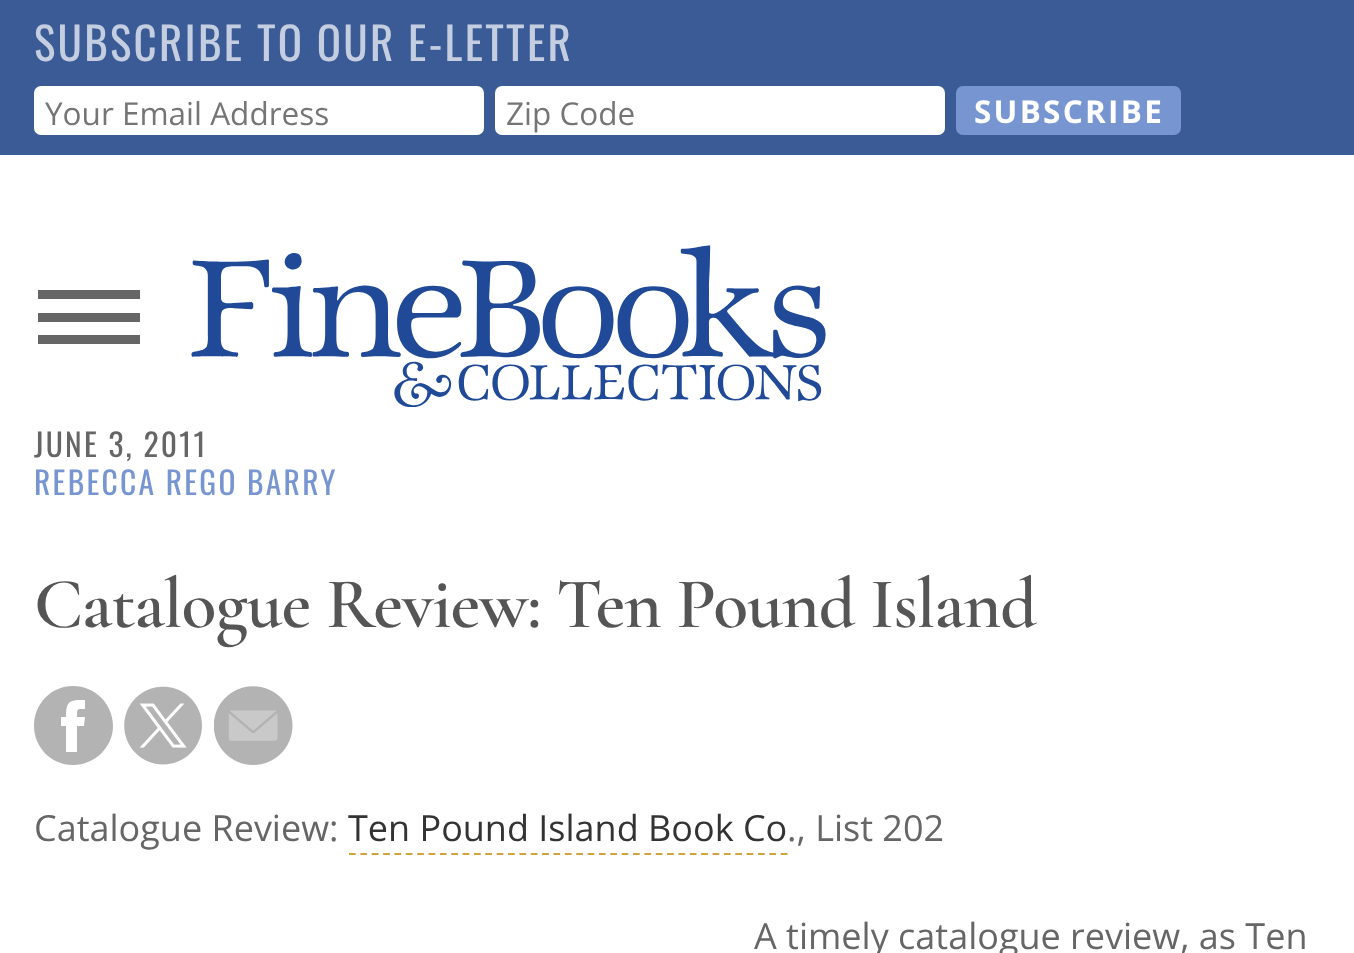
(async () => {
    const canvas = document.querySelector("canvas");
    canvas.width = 1354;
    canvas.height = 953;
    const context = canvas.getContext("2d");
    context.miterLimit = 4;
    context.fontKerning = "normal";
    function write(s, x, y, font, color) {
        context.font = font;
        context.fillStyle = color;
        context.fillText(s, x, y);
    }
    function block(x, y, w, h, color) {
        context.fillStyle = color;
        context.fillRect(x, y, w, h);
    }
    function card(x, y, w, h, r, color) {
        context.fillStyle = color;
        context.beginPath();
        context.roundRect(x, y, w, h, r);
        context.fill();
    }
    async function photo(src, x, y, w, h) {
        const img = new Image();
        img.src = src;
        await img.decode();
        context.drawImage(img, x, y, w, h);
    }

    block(0, 0, 1354, 953, "rgb(255, 255, 255)");
    block(0, 0, 1354, 155, "rgb(59, 91, 151)");
    context.letterSpacing = "2.25px";
    write("SUBSCRIBE TO OUR E-LETTER", 34, 61, "45px Oswald", "rgb(196, 206, 224)");
    card(34, 86, 450, 49, 7, "rgb(255, 255, 255)");
    context.letterSpacing = "0px";
    write("Your Email Address", 45, 125, "31.5px Open Sans", "rgb(117, 117, 117)");
    card(495, 86, 450, 49, 7, "rgb(255, 255, 255)");
    write("Zip Code", 506, 125, "31.5px Open Sans", "rgb(117, 117, 117)");
    card(956, 86, 225, 49, 7, "rgb(119, 150, 209)");
    context.letterSpacing = "2.25px";
    write("SUBSCRIBE", 974, 123, "bold 31.5px Open Sans", "rgb(255, 255, 255)");
    block(38, 313, 102, 9, "rgb(102, 102, 102)");
    block(38, 290, 102, 9, "rgb(102, 102, 102)");
    block(38, 335, 102, 9, "rgb(102, 102, 102)");
    await photo("media/1.png", 191, 245, 635, 162);
    write("JUNE 3, 2011", 34, 457, "31.5px Oswald", "rgb(102, 102, 102)");
    write("REBECCA REGO BARRY", 34, 495, "31.5px Oswald", "rgb(119, 150, 209)");
    context.letterSpacing = "-1.1px";
    write("Catalogue Review: Ten Pound Island", 34, 627, "600 72px Cormorant Garamond", "rgb(85, 85, 85)");
    context.fillStyle = "rgb(179, 179, 179)";
    context.beginPath();
    context.moveTo(66, 752);
    context.lineTo(77, 752);
    context.lineTo(77, 726);
    context.lineTo(84, 726);
    context.lineTo(85, 717);
    context.lineTo(77, 717);
    context.bezierCurveTo(77, 708, 77, 709, 85, 709);
    context.lineTo(85, 700);
    context.bezierCurveTo(70, 700, 66, 700, 66, 717);
    context.lineTo(61, 717);
    context.lineTo(61, 726);
    context.lineTo(66, 726);
    context.closePath();
    context.moveTo(73, 765);
    context.bezierCurveTo(51, 765, 34, 747, 34, 726);
    context.bezierCurveTo(34, 704, 51, 686, 73, 686);
    context.bezierCurveTo(95, 686, 113, 704, 113, 726);
    context.bezierCurveTo(113, 747, 95, 765, 73, 765);
    context.closePath();
    context.fill();
    await photo("media/2.png", 124, 686, 78, 79);
    await photo("media/3.png", 214, 686, 79, 79);
    context.letterSpacing = "0px";
    write("Catalogue Review:", 34, 841, "36px Open Sans", "rgb(102, 102, 102)");
    write("Ten Pound Island Book Co", 348, 841, "36px Open Sans", "rgb(51, 51, 51)");
    context.beginPath();
    context.moveTo(349, 854);
    context.lineTo(787.5, 854);
    context.strokeStyle = "rgb(208, 164, 59)";
    context.lineWidth = 2.2;
    context.setLineDash([6.75, 4.61]);
    context.stroke();
    write("., List 202", 787, 841, "36px Open Sans", "rgb(102, 102, 102)");
    write("A timely catalogue review, as Ten", 754, 949, "36px Open Sans", "rgb(102, 102, 102)");
})();
